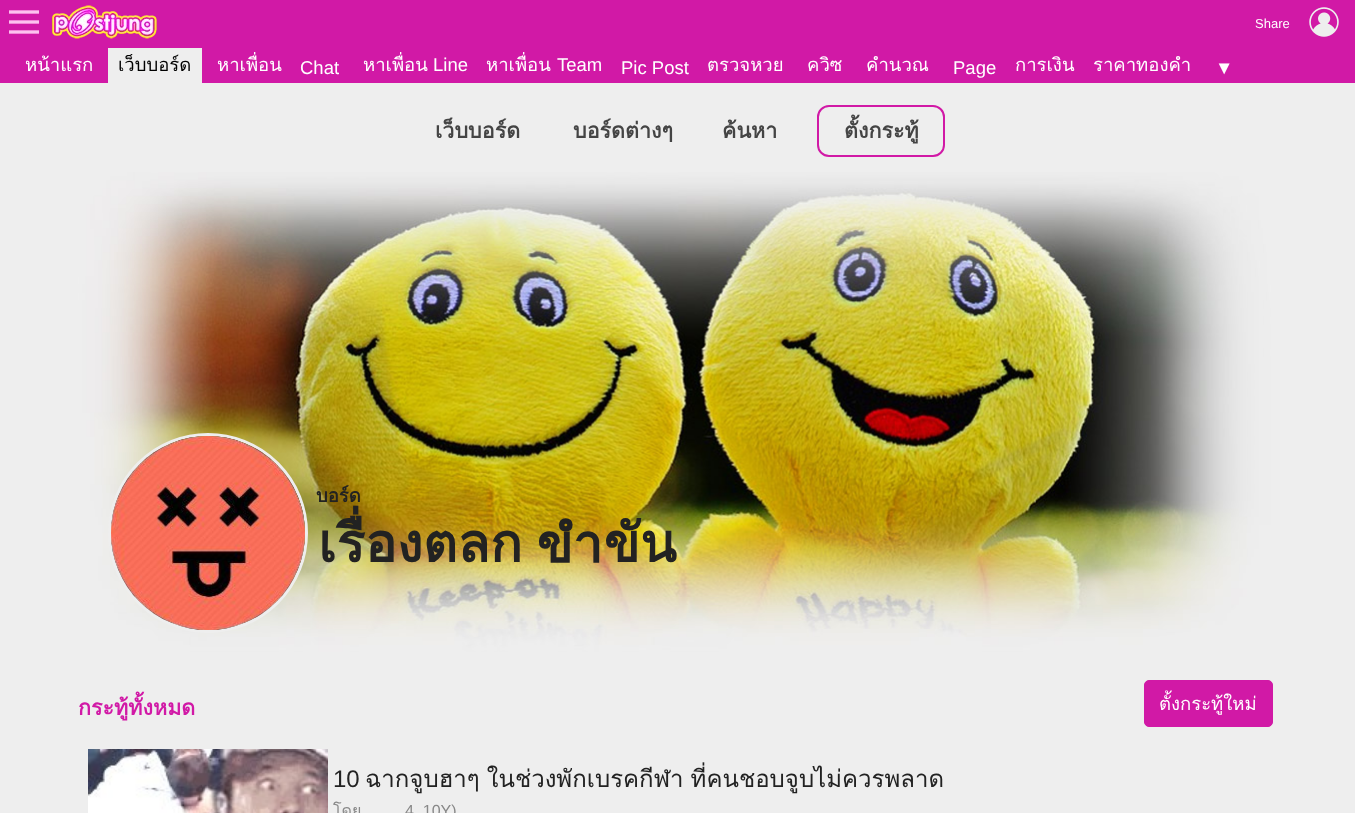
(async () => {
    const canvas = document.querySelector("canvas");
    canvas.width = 1355;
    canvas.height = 813;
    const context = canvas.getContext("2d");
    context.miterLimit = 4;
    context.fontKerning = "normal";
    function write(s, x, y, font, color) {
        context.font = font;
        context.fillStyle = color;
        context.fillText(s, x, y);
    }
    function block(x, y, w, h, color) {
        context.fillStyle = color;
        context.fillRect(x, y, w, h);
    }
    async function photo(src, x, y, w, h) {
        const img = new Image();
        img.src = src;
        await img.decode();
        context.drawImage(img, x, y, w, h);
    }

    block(0, 0, 1355, 813, "rgb(238, 238, 238)");
    block(0, 0, 1355, 83, "rgb(209, 25, 166)");
    await photo("media/1.png", 9, 10, 30, 24);
    await photo("media/2.png", 52, 5, 105, 34);
    write("Share", 1255, 28, "13px Liberation Sans", "rgb(255, 255, 255)");
    await photo("media/3.png", 1309, 7, 30, 30);
    write("หน้าแรก", 25, 71, "18.5px Loma", "rgb(255, 255, 255)");
    block(108, 48, 94, 35, "rgb(238, 238, 238)");
    write("เว็บบอร์ด", 118, 71, "18.5px Loma", "rgb(0, 0, 0)");
    write("หาเพื่อน", 217, 71, "18.5px Loma", "rgb(255, 255, 255)");
    write("Chat", 300, 74, "18.5px Liberation Sans", "rgb(255, 255, 255)");
    write("หาเพื่อน", 363, 71, "18.5px Loma", "rgb(255, 255, 255)");
    write("Line", 433, 71, "18.5px Liberation Sans", "rgb(255, 255, 255)");
    write("หาเพื่อน", 486, 71, "18.5px Loma", "rgb(255, 255, 255)");
    write("Team", 557, 71, "18.5px Liberation Sans", "rgb(255, 255, 255)");
    write("Pic Post", 621, 74, "18.5px Liberation Sans", "rgb(255, 255, 255)");
    write("ตรวจหวย", 707, 71, "18.5px Loma", "rgb(255, 255, 255)");
    write("ควิซ", 807, 71, "18.5px Loma", "rgb(255, 255, 255)");
    write("คำนวณ", 866, 71, "18.5px Loma", "rgb(255, 255, 255)");
    write("Page", 953, 74, "18.5px Liberation Sans", "rgb(255, 255, 255)");
    write("การเงิน", 1015, 71, "18.5px Loma", "rgb(255, 255, 255)");
    write("ราคาทองคำ", 1093, 71, "18.5px Loma", "rgb(255, 255, 255)");
    write("▼", 1215, 74, "18.5px Liberation Sans", "rgb(255, 255, 255)");
    write("เว็บบอร์ด", 435, 138, "bold 21.5px Loma", "rgb(68, 68, 68)");
    write("บอร์ดต่างๆ", 573, 138, "bold 21.5px Loma", "rgb(68, 68, 68)");
    write("ค้นหา", 722, 138, "bold 21.5px Loma", "rgb(68, 68, 68)");
    context.beginPath();
    context.roundRect(818, 106, 126, 50, 11);
    context.strokeStyle = "rgb(209, 25, 166)";
    context.lineWidth = 2;
    context.stroke();
    write("ตั้งกระทู้", 844, 138, "bold 21.5px Loma", "rgb(68, 68, 68)");
    await photo("media/4.png", 78, 172, 1200, 480);
    context.beginPath();
    context.arc(208, 533, 98.5, 0, Math.PI * 2);
    context.strokeStyle = "rgb(238, 238, 238)";
    context.lineWidth = 3;
    context.stroke();
    await photo("media/5.png", 111, 436, 194, 194);
    write("บอร์ด", 316, 502, "bold 18.5px Loma", "rgb(34, 34, 34)");
    context.wordSpacing = "-3px";
    write("เรื่องตลก ขำขัน", 318, 562, "bold 53.25px Loma", "rgb(34, 34, 34)");
    context.wordSpacing = "0px";
    write("กระทู้ทั้งหมด", 78, 715, "bold 21.5px Loma", "rgb(209, 25, 166)");
    await photo("media/6.png", 88, 749, 240, 64);
    write("10", 333, 787, "24px Liberation Sans", "rgb(34, 34, 34)");
    context.wordSpacing = "-1px";
    write("ฉากจูบฮาๆ ในช่วงพักเบรคกีฬา ที่คนชอบจูบไม่ควรพลาด", 365, 787, "24px Loma", "rgb(34, 34, 34)");
    context.wordSpacing = "0px";
    write("โดย", 333, 816, "16px Loma", "rgb(136, 136, 136)");
    write("4, 10Y)", 405, 816, "16px Liberation Sans", "rgb(136, 136, 136)");
    context.fillStyle = "rgb(209, 25, 166)";
    context.beginPath();
    context.roundRect(1144.5, 680.5, 128, 46, 4.5);
    context.fill();
    context.strokeStyle = "rgb(209, 25, 166)";
    context.lineWidth = 1;
    context.stroke();
    write("ตั้งกระทู้ใหม่", 1159, 710, "18.5px Loma", "rgb(255, 255, 255)");
})();
